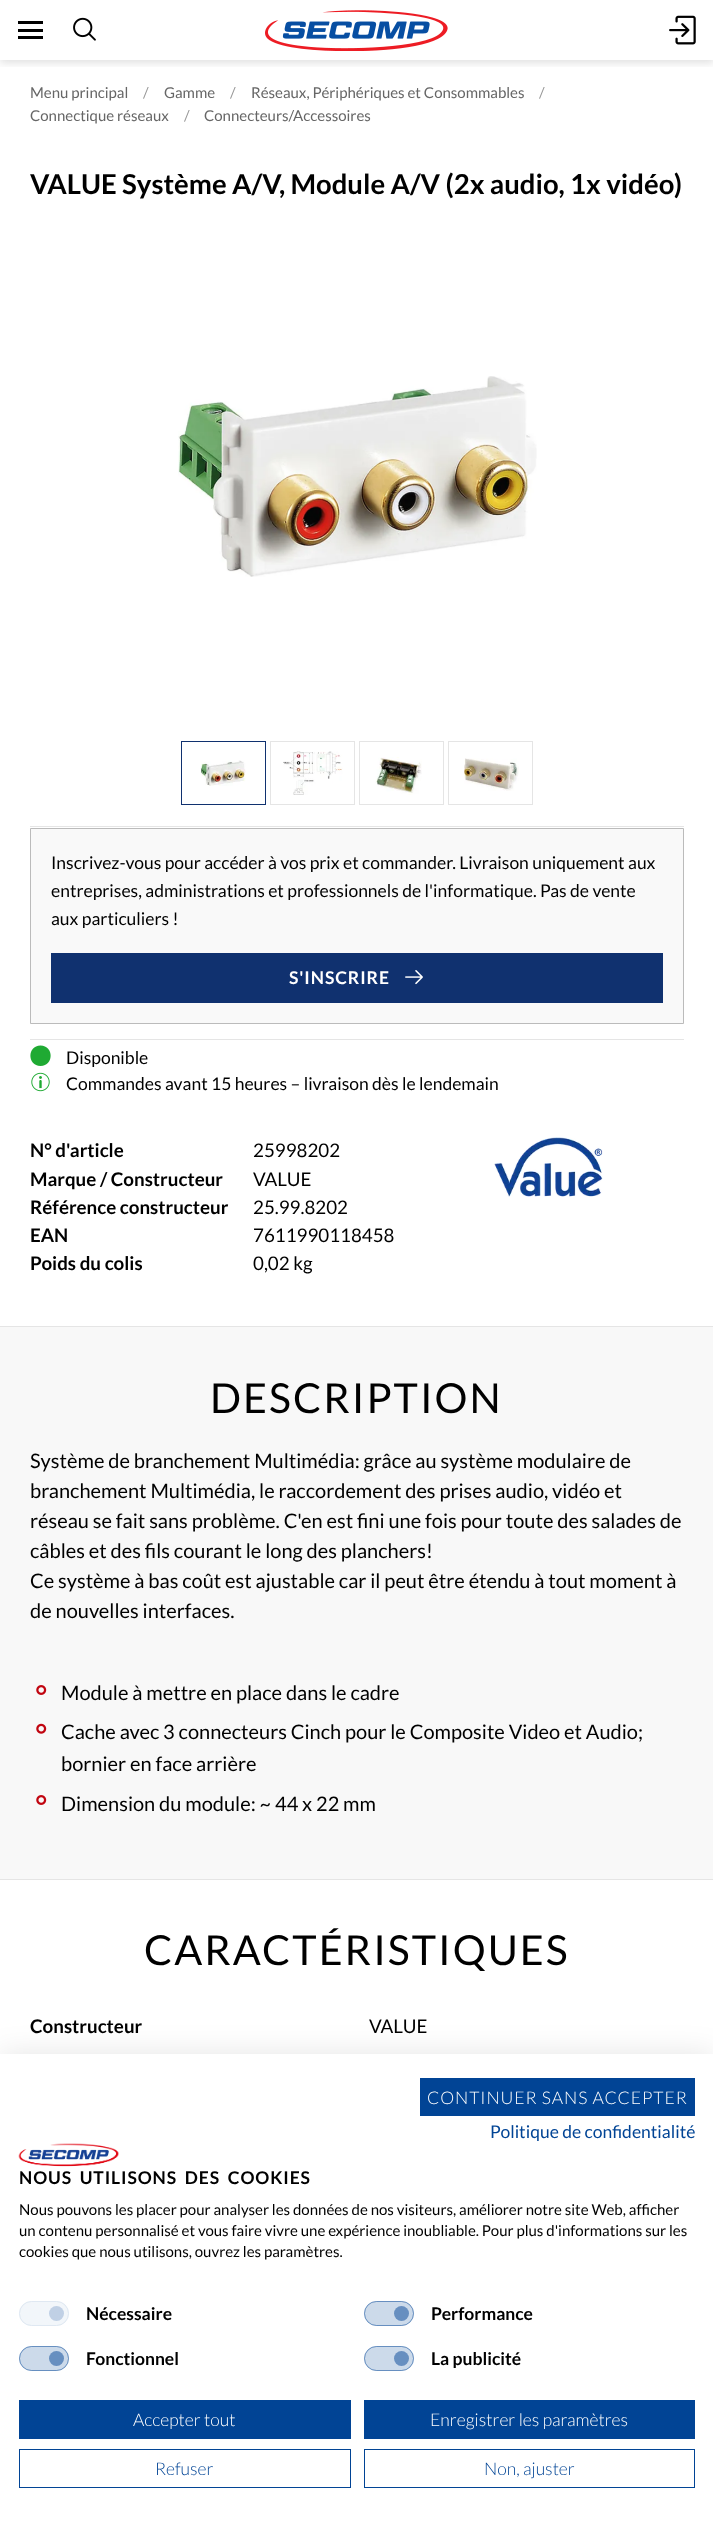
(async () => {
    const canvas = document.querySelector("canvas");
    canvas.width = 713;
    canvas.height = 2521;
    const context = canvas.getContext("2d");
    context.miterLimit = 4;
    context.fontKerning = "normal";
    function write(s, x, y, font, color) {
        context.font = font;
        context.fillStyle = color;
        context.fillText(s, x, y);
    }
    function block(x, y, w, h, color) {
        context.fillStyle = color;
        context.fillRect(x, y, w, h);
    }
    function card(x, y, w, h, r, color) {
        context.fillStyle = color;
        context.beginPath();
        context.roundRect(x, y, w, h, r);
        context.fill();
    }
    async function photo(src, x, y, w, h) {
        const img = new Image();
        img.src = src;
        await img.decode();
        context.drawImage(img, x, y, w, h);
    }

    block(0, 0, 713, 2521, "rgb(255, 255, 255)");
    context.save();
    context.beginPath();
    context.rect(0, 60, 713, 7);
    context.clip();
    context.fillStyle = "rgba(1, 1, 1, 0.12)";
    context.filter = "blur(4px)";
    context.beginPath();
    context.rect(0, 3, 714, 60);
    context.fill();
    context.filter = "none";
    context.restore();
    block(18, 21, 25, 3, "rgb(0, 0, 0)");
    block(18, 29, 25, 3, "rgb(0, 0, 0)");
    block(18, 36, 25, 3, "rgb(0, 0, 0)");
    await photo("media/1.png", 73, 17, 23, 24);
    await photo("media/2.png", 265, 10, 183, 41);
    await photo("media/3.png", 669, 15, 27, 30);
    write("Menu principal", 30, 98, "15px Lato", "rgb(102, 102, 102)");
    write("/", 143, 98, "15px Lato", "rgb(153, 153, 153)");
    write("Gamme", 164, 98, "15px Lato", "rgb(102, 102, 102)");
    write("/", 230, 98, "15px Lato", "rgb(153, 153, 153)");
    write("Réseaux, Périphériques et Consommables", 251, 98, "15px Lato", "rgb(102, 102, 102)");
    write("/", 539, 98, "15px Lato", "rgb(153, 153, 153)");
    write("Connectique réseaux", 30, 121, "15px Lato", "rgb(102, 102, 102)");
    write("/", 184, 121, "15px Lato", "rgb(153, 153, 153)");
    write("Connecteurs/Accessoires", 204, 121, "15px Lato", "rgb(102, 102, 102)");
    write("VALUE Système A/V, Module A/V (2x audio, 1x vidéo)", 30, 194, "bold 27.5px Lato", "rgb(0, 0, 0)");
    block(30, 826, 654, 1, "rgb(229, 229, 229)");
    await photo("media/4.png", 178, 376, 359, 201);
    context.strokeStyle = "rgb(16, 49, 111)";
    context.strokeRect(181.5, 741.5, 84, 63);
    await photo("media/5.png", 200, 760, 46, 26);
    context.strokeStyle = "rgb(229, 229, 229)";
    context.strokeRect(270.5, 741.5, 84, 63);
    await photo("media/6.png", 283, 751, 60, 44);
    context.strokeRect(359.5, 741.5, 84, 63);
    await photo("media/7.png", 375, 757, 47, 38);
    context.strokeRect(448.5, 741.5, 84, 63);
    await photo("media/8.png", 464, 758, 55, 33);
    context.fillStyle = "rgb(249, 249, 249)";
    context.beginPath();
    context.rect(30.5, 828.5, 653, 195);
    context.fill();
    context.strokeStyle = "rgb(187, 187, 187)";
    context.stroke();
    write("Inscrivez-vous pour accéder à vos prix et commander. Livraison uniquement aux", 51, 869, "17.5px Lato", "rgb(0, 0, 0)");
    write("entreprises, administrations et professionnels de l'informatique. Pas de vente", 51, 897, "17.5px Lato", "rgb(0, 0, 0)");
    write("aux particuliers !", 51, 925, "17.5px Lato", "rgb(0, 0, 0)");
    block(51, 953, 612, 50, "rgb(16, 49, 111)");
    context.letterSpacing = "0.9px";
    write("S'INSCRIRE", 289, 984, "bold 17.5px Lato", "rgb(255, 255, 255)");
    await photo("media/9.png", 405, 970, 18, 15);
    block(30, 1039, 654, 1, "rgb(229, 229, 229)");
    context.fillStyle = "rgb(31, 170, 51)";
    context.beginPath();
    context.moveTo(40.5, 1045.5);
    context.bezierCurveTo(27, 1045.5, 27, 1066, 40.5, 1066);
    context.bezierCurveTo(54, 1066, 54, 1045.5, 40.5, 1045.5);
    context.closePath();
    context.fill();
    context.letterSpacing = "0px";
    write("Disponible", 66, 1064, "17.5px Lato", "rgb(0, 0, 0)");
    await photo("media/10.png", 31, 1072, 19, 20);
    write("Commandes avant 15 heures – livraison dès le lendemain", 66, 1090, "17.5px Lato", "rgb(0, 0, 0)");
    write("N° d'article", 30, 1157, "bold 18.75px Lato", "rgb(0, 0, 0)");
    write("25998202", 253, 1157, "18.75px Lato", "rgb(0, 0, 0)");
    write("Marque / Constructeur", 30, 1186, "bold 18.75px Lato", "rgb(0, 0, 0)");
    write("VALUE", 253, 1186, "18.75px Lato", "rgb(0, 0, 0)");
    write("Référence constructeur", 30, 1214, "bold 18.75px Lato", "rgb(0, 0, 0)");
    write("25.99.8202", 253, 1214, "18.75px Lato", "rgb(0, 0, 0)");
    write("EAN", 30, 1242, "bold 18.75px Lato", "rgb(0, 0, 0)");
    write("7611990118458", 253, 1242, "18.75px Lato", "rgb(0, 0, 0)");
    write("Poids du colis", 30, 1270, "bold 18.75px Lato", "rgb(0, 0, 0)");
    write("0,02 kg", 253, 1270, "18.75px Lato", "rgb(0, 0, 0)");
    await photo("media/11.png", 494, 1137, 109, 60);
    block(0, 1327, 713, 552, "rgb(248, 248, 248)");
    block(0, 1326, 713, 1, "rgb(229, 229, 229)");
    context.letterSpacing = "2px";
    write("DESCRIPTION", 210, 1413, "41.25px Lato", "rgb(0, 0, 0)");
    context.letterSpacing = "0px";
    write("Système de branchement Multimédia: grâce au système modulaire de", 30, 1468, "20px Lato", "rgb(0, 0, 0)");
    write("branchement Multimédia, le raccordement des prises audio, vidéo et", 30, 1498, "20px Lato", "rgb(0, 0, 0)");
    write("réseau se fait sans problème. C'en est fini une fois pour toute des salades de", 30, 1528, "20px Lato", "rgb(0, 0, 0)");
    write("câbles et des fils courant le long des planchers!", 30, 1558, "20px Lato", "rgb(0, 0, 0)");
    write("Ce système à bas coût est ajustable car il peut être étendu à tout moment à", 30, 1588, "20px Lato", "rgb(0, 0, 0)");
    write("de nouvelles interfaces.", 30, 1618, "20px Lato", "rgb(0, 0, 0)");
    await photo("media/12.png", 36, 1685, 11, 10);
    write("Module à mettre en place dans le cadre", 61, 1700, "20px Lato", "rgb(0, 0, 0)");
    await photo("media/13.png", 36, 1723, 11, 11);
    write("Cache avec 3 connecteurs Cinch pour le Composite Video et Audio;", 61, 1739, "20px Lato", "rgb(0, 0, 0)");
    write("bornier en face arrière", 61, 1771, "20px Lato", "rgb(0, 0, 0)");
    await photo("media/12.png", 36, 1795, 11, 10);
    write("Dimension du module: ~ 44 x 22 mm", 61, 1811, "20px Lato", "rgb(0, 0, 0)");
    block(0, 1879, 713, 1, "rgb(229, 229, 229)");
    context.letterSpacing = "2px";
    write("CARACTÉRISTIQUES", 144, 1965, "41.25px Lato", "rgb(0, 0, 0)");
    context.letterSpacing = "0px";
    write("Constructeur", 30, 2033, "bold 18.75px Lato", "rgb(0, 0, 0)");
    write("VALUE", 369, 2033, "18.75px Lato", "rgb(0, 0, 0)");
    context.fillStyle = "rgba(0, 0, 0, 0.1)";
    context.filter = "blur(15px)";
    context.beginPath();
    context.rect(0, 2054, 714, 467);
    context.fill();
    context.filter = "none";
    block(0, 2054, 713, 467, "rgb(255, 255, 255)");
    block(420, 2078, 275, 38, "rgb(1, 68, 149)");
    context.letterSpacing = "0.9px";
    write("CONTINUER SANS ACCEPTER", 427, 2104, "300 17.5px Lato", "rgb(255, 255, 255)");
    context.letterSpacing = "0px";
    write("Politique de confidentialité", 490, 2138, "17.5px Lato", "rgb(1, 68, 149)");
    await photo("media/14.png", 18, 2143, 101, 24);
    context.letterSpacing = "0.9px";
    context.wordSpacing = "3.5px";
    write("NOUS UTILISONS DES COOKIES", 19, 2184, "bold 17.5px Lato", "rgb(0, 0, 0)");
    context.letterSpacing = "0px";
    context.wordSpacing = "0px";
    write("Nous pouvons les placer pour analyser les données de nos visiteurs, améliorer notre site Web, afficher", 19, 2215, "15px Lato", "rgb(0, 0, 0)");
    write("un contenu personnalisé et vous faire vivre une expérience inoubliable. Pour plus d'informations sur les", 19, 2236, "15px Lato", "rgb(0, 0, 0)");
    write("cookies que nous utilisons, ouvrez les paramètres.", 19, 2257, "15px Lato", "rgb(0, 0, 0)");
    card(19, 2301, 50, 25, 12.5, "rgb(242, 246, 250)");
    context.fillStyle = "rgb(192, 208, 229)";
    context.beginPath();
    context.arc(56.5, 2313.5, 7.5, 0, Math.PI * 2);
    context.fill();
    context.beginPath();
    context.roundRect(19.5, 2301.5, 49, 24, 12);
    context.strokeStyle = "rgb(223, 232, 242)";
    context.stroke();
    write("Nécessaire", 86, 2320, "bold 17.5px Lato", "rgb(0, 0, 0)");
    card(364, 2301, 50, 25, 12.5, "rgb(204, 218, 234)");
    context.fillStyle = "rgb(103, 143, 192)";
    context.beginPath();
    context.arc(401.5, 2313.5, 7.5, 0, Math.PI * 2);
    context.fill();
    context.beginPath();
    context.roundRect(364.5, 2301.5, 49, 24, 12);
    context.strokeStyle = "rgba(1, 68, 149, 0.5)";
    context.stroke();
    write("Performance", 431, 2320, "bold 17.5px Lato", "rgb(0, 0, 0)");
    card(19, 2346, 50, 25, 12.5, "rgb(204, 218, 234)");
    context.fillStyle = "rgb(103, 143, 192)";
    context.beginPath();
    context.arc(56.5, 2358.5, 7.5, 0, Math.PI * 2);
    context.fill();
    context.beginPath();
    context.roundRect(19.5, 2346.5, 49, 24, 12);
    context.stroke();
    write("Fonctionnel", 86, 2365, "bold 17.5px Lato", "rgb(0, 0, 0)");
    card(364, 2346, 50, 25, 12.5, "rgb(204, 218, 234)");
    context.fillStyle = "rgb(103, 143, 192)";
    context.beginPath();
    context.arc(401.5, 2358.5, 7.5, 0, Math.PI * 2);
    context.fill();
    context.beginPath();
    context.roundRect(364.5, 2346.5, 49, 24, 12);
    context.stroke();
    write("La publicité", 431, 2365, "bold 17.5px Lato", "rgb(0, 0, 0)");
    block(19, 2400, 332, 39, "rgb(1, 68, 149)");
    write("Accepter tout", 133, 2426, "300 17.5px Lato", "rgb(255, 255, 255)");
    block(364, 2400, 331, 39, "rgb(1, 68, 149)");
    write("Enregistrer les paramètres", 430, 2426, "300 17.5px Lato", "rgb(255, 255, 255)");
    context.strokeStyle = "rgb(1, 68, 149)";
    context.strokeRect(19.5, 2449.5, 331, 38);
    write("Refuser", 155, 2475, "300 17.5px Lato", "rgb(1, 68, 149)");
    context.strokeRect(364.5, 2449.5, 330, 38);
    write("Non, ajuster", 484, 2475, "300 17.5px Lato", "rgb(1, 68, 149)");
})();
